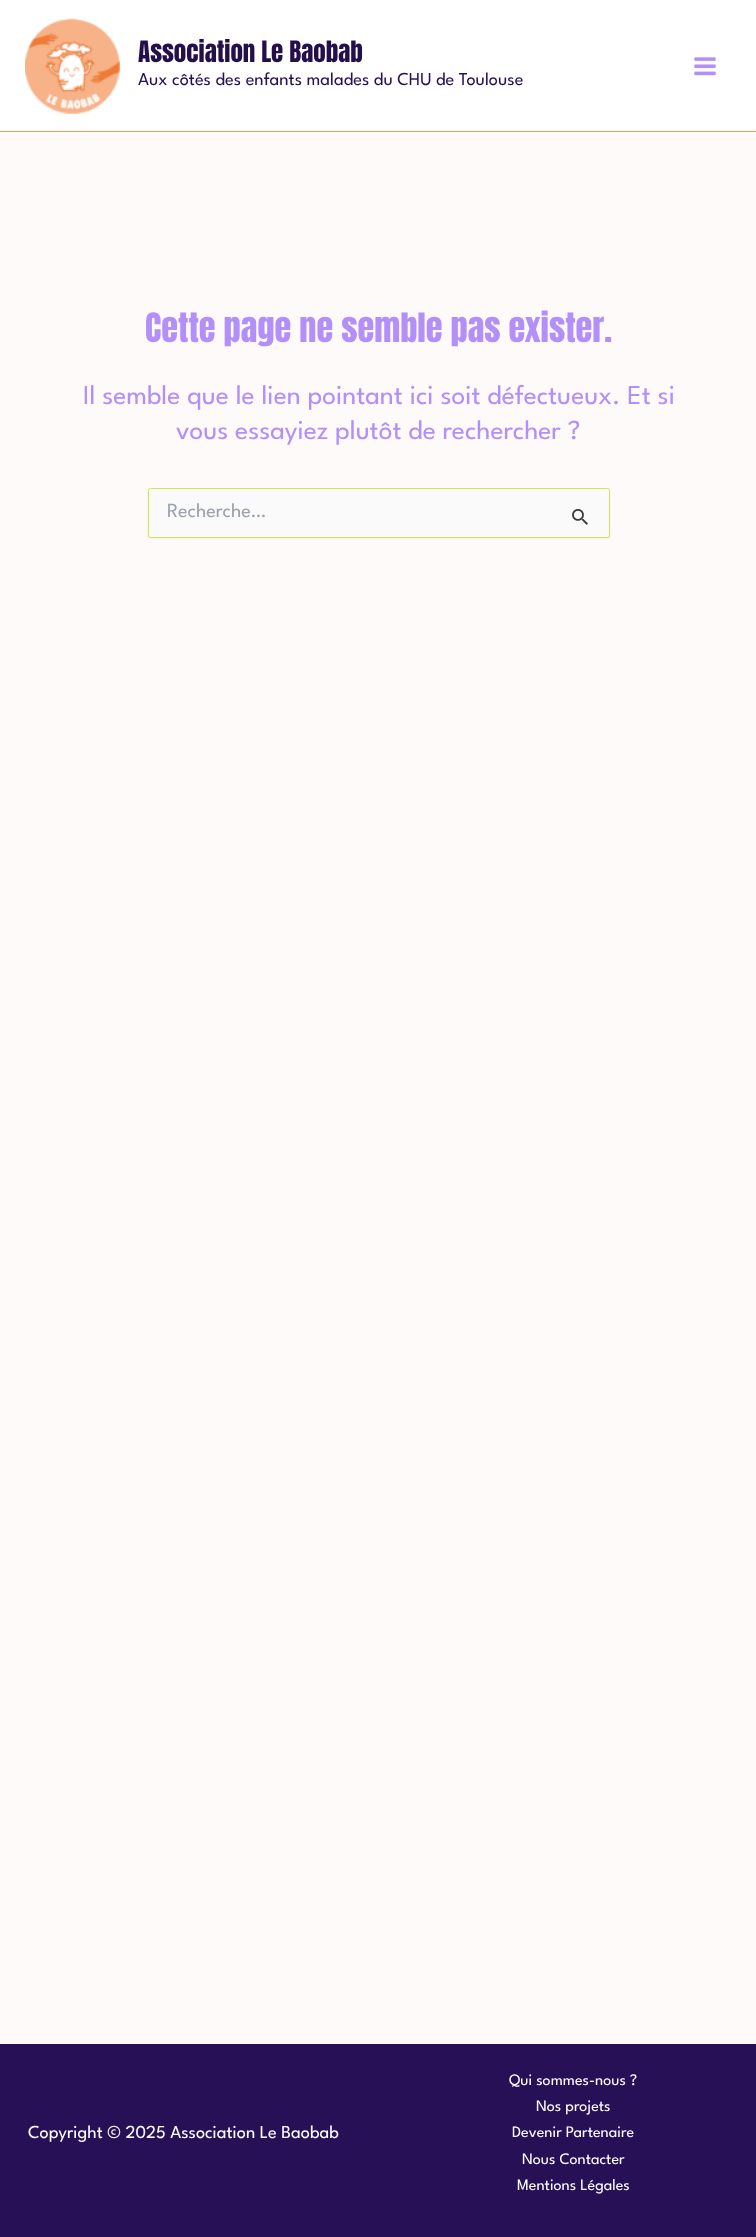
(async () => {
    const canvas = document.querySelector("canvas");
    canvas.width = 756;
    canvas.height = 2237;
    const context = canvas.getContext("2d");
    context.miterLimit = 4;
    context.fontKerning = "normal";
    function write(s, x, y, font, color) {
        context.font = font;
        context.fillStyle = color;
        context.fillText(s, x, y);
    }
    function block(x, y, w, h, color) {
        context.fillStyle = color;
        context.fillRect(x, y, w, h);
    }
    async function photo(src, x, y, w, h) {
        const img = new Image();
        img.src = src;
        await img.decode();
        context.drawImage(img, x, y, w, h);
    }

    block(0, 0, 756, 2237, "rgb(255, 250, 250)");
    block(0, 0, 756, 133, "rgb(255, 255, 255)");
    block(0, 131, 756, 1, "rgb(255, 145, 77)");
    await photo("media/1.png", 25, 18, 95, 96);
    write("Association Le Baobab", 138, 62, "25px Anton", "rgb(35, 15, 75)");
    write("Aux côtés des enfants malades du CHU de Toulouse", 138, 85, "100 18.25px League Spartan", "rgb(40, 16, 87)");
    await photo("media/2.png", 694, 57, 22, 19);
    write("Cette page ne semble pas exister.", 145, 342, "34.25px Anton", "rgb(179, 143, 250)");
    write("Il semble que le lien pointant ici soit défectueux. Et si", 83, 404, "100 27.4px League Spartan", "rgb(179, 143, 250)");
    write("vous essayiez plutôt de rechercher ?", 176, 439, "100 27.4px League Spartan", "rgb(179, 143, 250)");
    context.fillStyle = "rgba(0, 0, 0, 0.05)";
    context.filter = "blur(1px)";
    context.beginPath();
    context.roundRect(148, 489, 462, 50, 2.5);
    context.fill();
    context.filter = "none";
    context.fillStyle = "rgb(250, 250, 250)";
    context.beginPath();
    context.roundRect(148.5, 488.5, 461, 49, 2);
    context.fill();
    context.strokeStyle = "rgb(214, 228, 74)";
    context.stroke();
    write("Recherche…", 167, 517, "100 20px League Spartan", "rgb(156, 163, 175)");
    await photo("media/3.png", 572, 509, 16, 16);
    block(0, 2044, 756, 193, "rgb(40, 16, 87)");
    write("Copyright © 2025 Association Le Baobab", 28, 2138, "100 18.25px League Spartan", "rgb(255, 255, 255)");
    write("Qui sommes-nous ?", 509, 2085, "100 16px League Spartan", "rgb(255, 255, 255)");
    write("Nos projets", 536, 2111, "100 16px League Spartan", "rgb(255, 255, 255)");
    write("Devenir Partenaire", 512, 2137, "100 16px League Spartan", "rgb(255, 255, 255)");
    write("Nous Contacter", 522, 2164, "100 16px League Spartan", "rgb(255, 255, 255)");
    write("Mentions Légales", 517, 2190, "100 16px League Spartan", "rgb(255, 255, 255)");
})();
